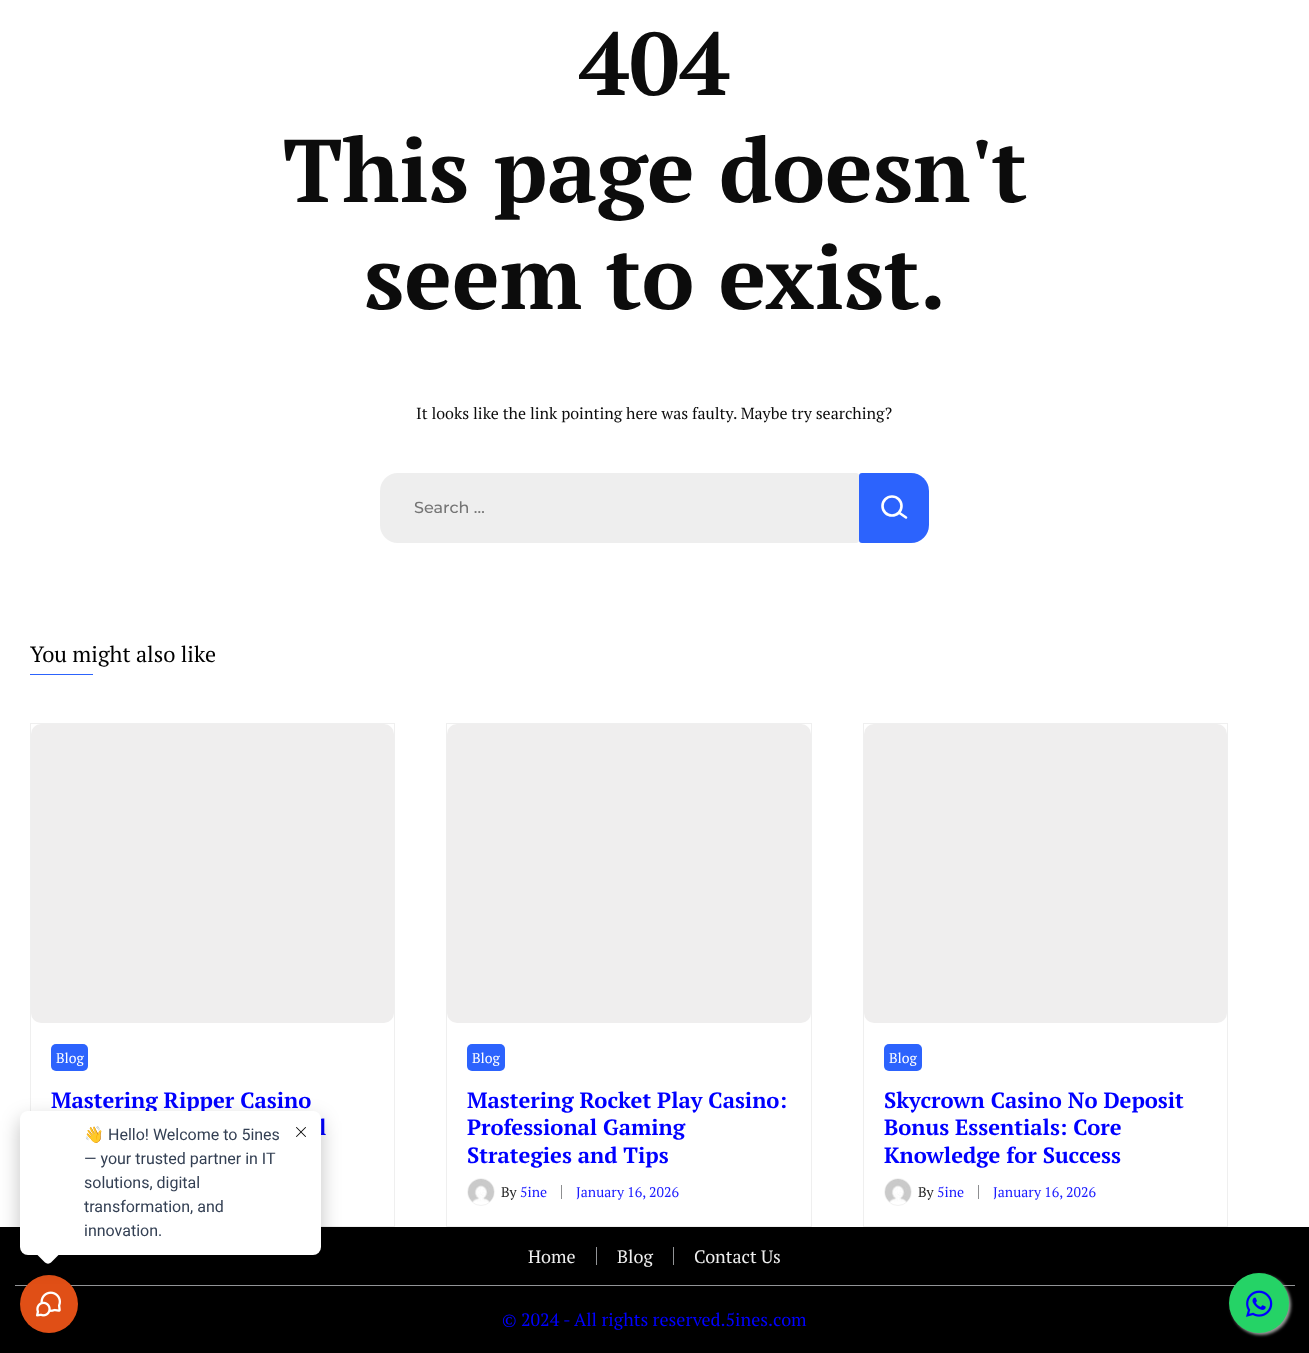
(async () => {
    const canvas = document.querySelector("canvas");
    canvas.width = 1309;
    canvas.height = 1353;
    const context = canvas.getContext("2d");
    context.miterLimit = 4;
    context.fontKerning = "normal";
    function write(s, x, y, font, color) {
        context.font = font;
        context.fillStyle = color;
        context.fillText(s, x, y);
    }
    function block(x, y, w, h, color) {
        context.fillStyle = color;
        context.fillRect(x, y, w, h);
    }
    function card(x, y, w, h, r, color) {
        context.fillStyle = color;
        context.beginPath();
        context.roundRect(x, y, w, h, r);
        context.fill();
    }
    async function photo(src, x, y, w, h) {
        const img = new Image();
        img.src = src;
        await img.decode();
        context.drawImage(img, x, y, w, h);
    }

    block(0, 0, 1309, 1353, "rgb(255, 255, 255)");
    write("404", 579, 95, "bold 89px PT Serif", "rgb(12, 12, 12)");
    write("This page doesn't", 283, 202, "bold 89px PT Serif", "rgb(12, 12, 12)");
    write("seem to exist.", 364, 309, "bold 89px PT Serif", "rgb(12, 12, 12)");
    write("It looks like the link pointing here was faulty. Maybe try searching?", 416, 419, "16px PT Serif", "rgb(12, 12, 12)");
    context.fillStyle = "rgb(238, 238, 238)";
    context.beginPath();
    context.roundRect(380, 473, 479, 70, [18, 3, 3, 18]);
    context.fill();
    write("Search …", 414, 513, "500 16px Montserrat", "rgb(117, 117, 117)");
    context.fillStyle = "rgb(44, 99, 253)";
    context.beginPath();
    context.roundRect(859, 473, 70, 70, [3, 18, 18, 3]);
    context.fill();
    context.beginPath();
    context.arc(892, 506, 9.5, 0, Math.PI * 2);
    context.strokeStyle = "rgb(255, 255, 255)";
    context.lineWidth = 2.6;
    context.stroke();
    context.beginPath();
    context.moveTo(899.5, 513);
    context.lineTo(906, 517.5);
    context.lineCap = "round";
    context.lineJoin = "round";
    context.stroke();
    write("You might also like", 30, 662, "22px PT Serif", "rgb(0, 0, 0)");
    block(30, 674, 63, 1, "rgb(44, 99, 253)");
    context.strokeStyle = "rgb(239, 239, 239)";
    context.lineWidth = 1;
    context.lineJoin = "miter";
    context.strokeRect(30.5, 723.5, 364, 503);
    card(31, 724, 363, 299, 10, "rgb(239, 238, 238)");
    card(51, 1044, 37, 27, 5, "rgb(44, 99, 253)");
    write("Blog", 56, 1063, "14px PT Serif", "rgb(255, 255, 255)");
    write("Mastering Ripper Casino", 51, 1108, "bold 22px PT Serif", "rgb(0, 0, 255)");
    write("l", 319, 1135, "bold 22px PT Serif", "rgb(0, 0, 255)");
    context.strokeRect(446.5, 723.5, 365, 503);
    card(447, 724, 364, 299, 10, "rgb(239, 238, 238)");
    card(467, 1044, 38, 27, 5, "rgb(44, 99, 253)");
    write("Blog", 472, 1063, "14px PT Serif", "rgb(255, 255, 255)");
    write("Mastering Rocket Play Casino:", 467, 1108, "bold 22px PT Serif", "rgb(0, 0, 255)");
    write("Professional Gaming", 467, 1135, "bold 22px PT Serif", "rgb(0, 0, 255)");
    write("Strategies and Tips", 467, 1163, "bold 22px PT Serif", "rgb(0, 0, 255)");
    context.beginPath();
    context.arc(481, 1192, 13.5, 0, Math.PI * 2);
    context.strokeStyle = "rgb(242, 242, 242)";
    context.stroke();
    await photo("media/1.png", 468, 1179, 26, 23);
    block(561, 1185, 1, 14, "rgb(141, 142, 144)");
    write("By", 501, 1197, "14px PT Serif", "rgb(36, 36, 36)");
    write("5ine", 520, 1197, "14px PT Serif", "rgb(26, 26, 255)");
    write("January 16, 2026", 576, 1197, "14px PT Serif", "rgb(26, 26, 255)");
    context.strokeStyle = "rgb(239, 239, 239)";
    context.strokeRect(863.5, 723.5, 364, 503);
    card(864, 724, 363, 299, 10, "rgb(239, 238, 238)");
    card(884, 1044, 38, 27, 5, "rgb(44, 99, 253)");
    write("Blog", 889, 1063, "14px PT Serif", "rgb(255, 255, 255)");
    write("Skycrown Casino No Deposit", 884, 1108, "bold 22px PT Serif", "rgb(0, 0, 255)");
    write("Bonus Essentials: Core", 884, 1135, "bold 22px PT Serif", "rgb(0, 0, 255)");
    write("Knowledge for Success", 884, 1163, "bold 22px PT Serif", "rgb(0, 0, 255)");
    context.beginPath();
    context.arc(898, 1192, 13.5, 0, Math.PI * 2);
    context.strokeStyle = "rgb(242, 242, 242)";
    context.stroke();
    await photo("media/1.png", 885, 1179, 26, 23);
    block(978, 1185, 1, 14, "rgb(141, 142, 144)");
    write("By", 918, 1197, "14px PT Serif", "rgb(36, 36, 36)");
    write("5ine", 937, 1197, "14px PT Serif", "rgb(26, 26, 255)");
    write("January 16, 2026", 993, 1197, "14px PT Serif", "rgb(26, 26, 255)");
    block(0, 1227, 1309, 126, "rgb(0, 0, 0)");
    block(596, 1247, 1, 18, "rgb(146, 148, 151)");
    write("Home", 528, 1263, "18px PT Serif", "rgb(238, 238, 238)");
    block(673, 1247, 1, 18, "rgb(146, 148, 151)");
    write("Blog", 617, 1263, "18px PT Serif", "rgb(238, 238, 238)");
    write("Contact Us", 694, 1263, "18px PT Serif", "rgb(238, 238, 238)");
    block(15, 1285, 1280, 1, "rgb(146, 148, 151)");
    write("© 2024 - All rights reserved.5ines.com", 502, 1326, "18px PT Serif", "rgb(0, 0, 255)");
    context.fillStyle = "rgb(224, 79, 22)";
    context.beginPath();
    context.arc(49, 1304, 29, 0, Math.PI * 2);
    context.fill();
    await photo("media/3.png", 36, 1291, 25, 26);
    context.fillStyle = "rgba(0, 0, 0, 0.24)";
    context.filter = "blur(10px)";
    context.beginPath();
    context.roundRect(20, 1119, 301, 144, 8);
    context.fill();
    context.filter = "none";
    card(20, 1111, 301, 144, 8, "rgb(255, 255, 255)");
    write("👋", 84, 1140, "16px Noto Color Emoji", "rgb(52, 64, 84)");
    write("Hello! Welcome to 5ines", 108, 1140, "16px Roboto", "rgb(52, 64, 84)");
    write("— your trusted partner in IT", 84, 1164, "16px Roboto", "rgb(52, 64, 84)");
    write("solutions, digital", 84, 1188, "16px Roboto", "rgb(52, 64, 84)");
    write("transformation, and", 84, 1212, "16px Roboto", "rgb(52, 64, 84)");
    write("innovation.", 84, 1236, "16px Roboto", "rgb(52, 64, 84)");
    context.fillStyle = "rgb(255, 255, 255)";
    context.beginPath();
    context.moveTo(51, 1239.5);
    context.lineTo(59.5, 1248);
    context.bezierCurveTo(61, 1249.5, 61, 1252.5, 59.5, 1254);
    context.lineTo(51, 1262.5);
    context.bezierCurveTo(49.5, 1264, 46.5, 1264, 45, 1262.5);
    context.lineTo(36.5, 1254);
    context.bezierCurveTo(35, 1252.5, 35, 1249.5, 36.5, 1248);
    context.lineTo(45, 1239.5);
    context.bezierCurveTo(46.5, 1238, 49.5, 1238, 51, 1239.5);
    context.closePath();
    context.fill();
    await photo("media/2.png", 296, 1127, 10, 10);
    context.fillStyle = "rgb(153, 153, 153)";
    context.filter = "blur(1.5px)";
    context.beginPath();
    context.roundRect(1231, 1275, 60, 60, 30);
    context.fill();
    context.filter = "none";
    context.fillStyle = "rgb(37, 211, 102)";
    context.beginPath();
    context.arc(1259, 1303, 30, 0, Math.PI * 2);
    context.fill();
    await photo("media/4.png", 1246, 1290, 27, 27);
})();
